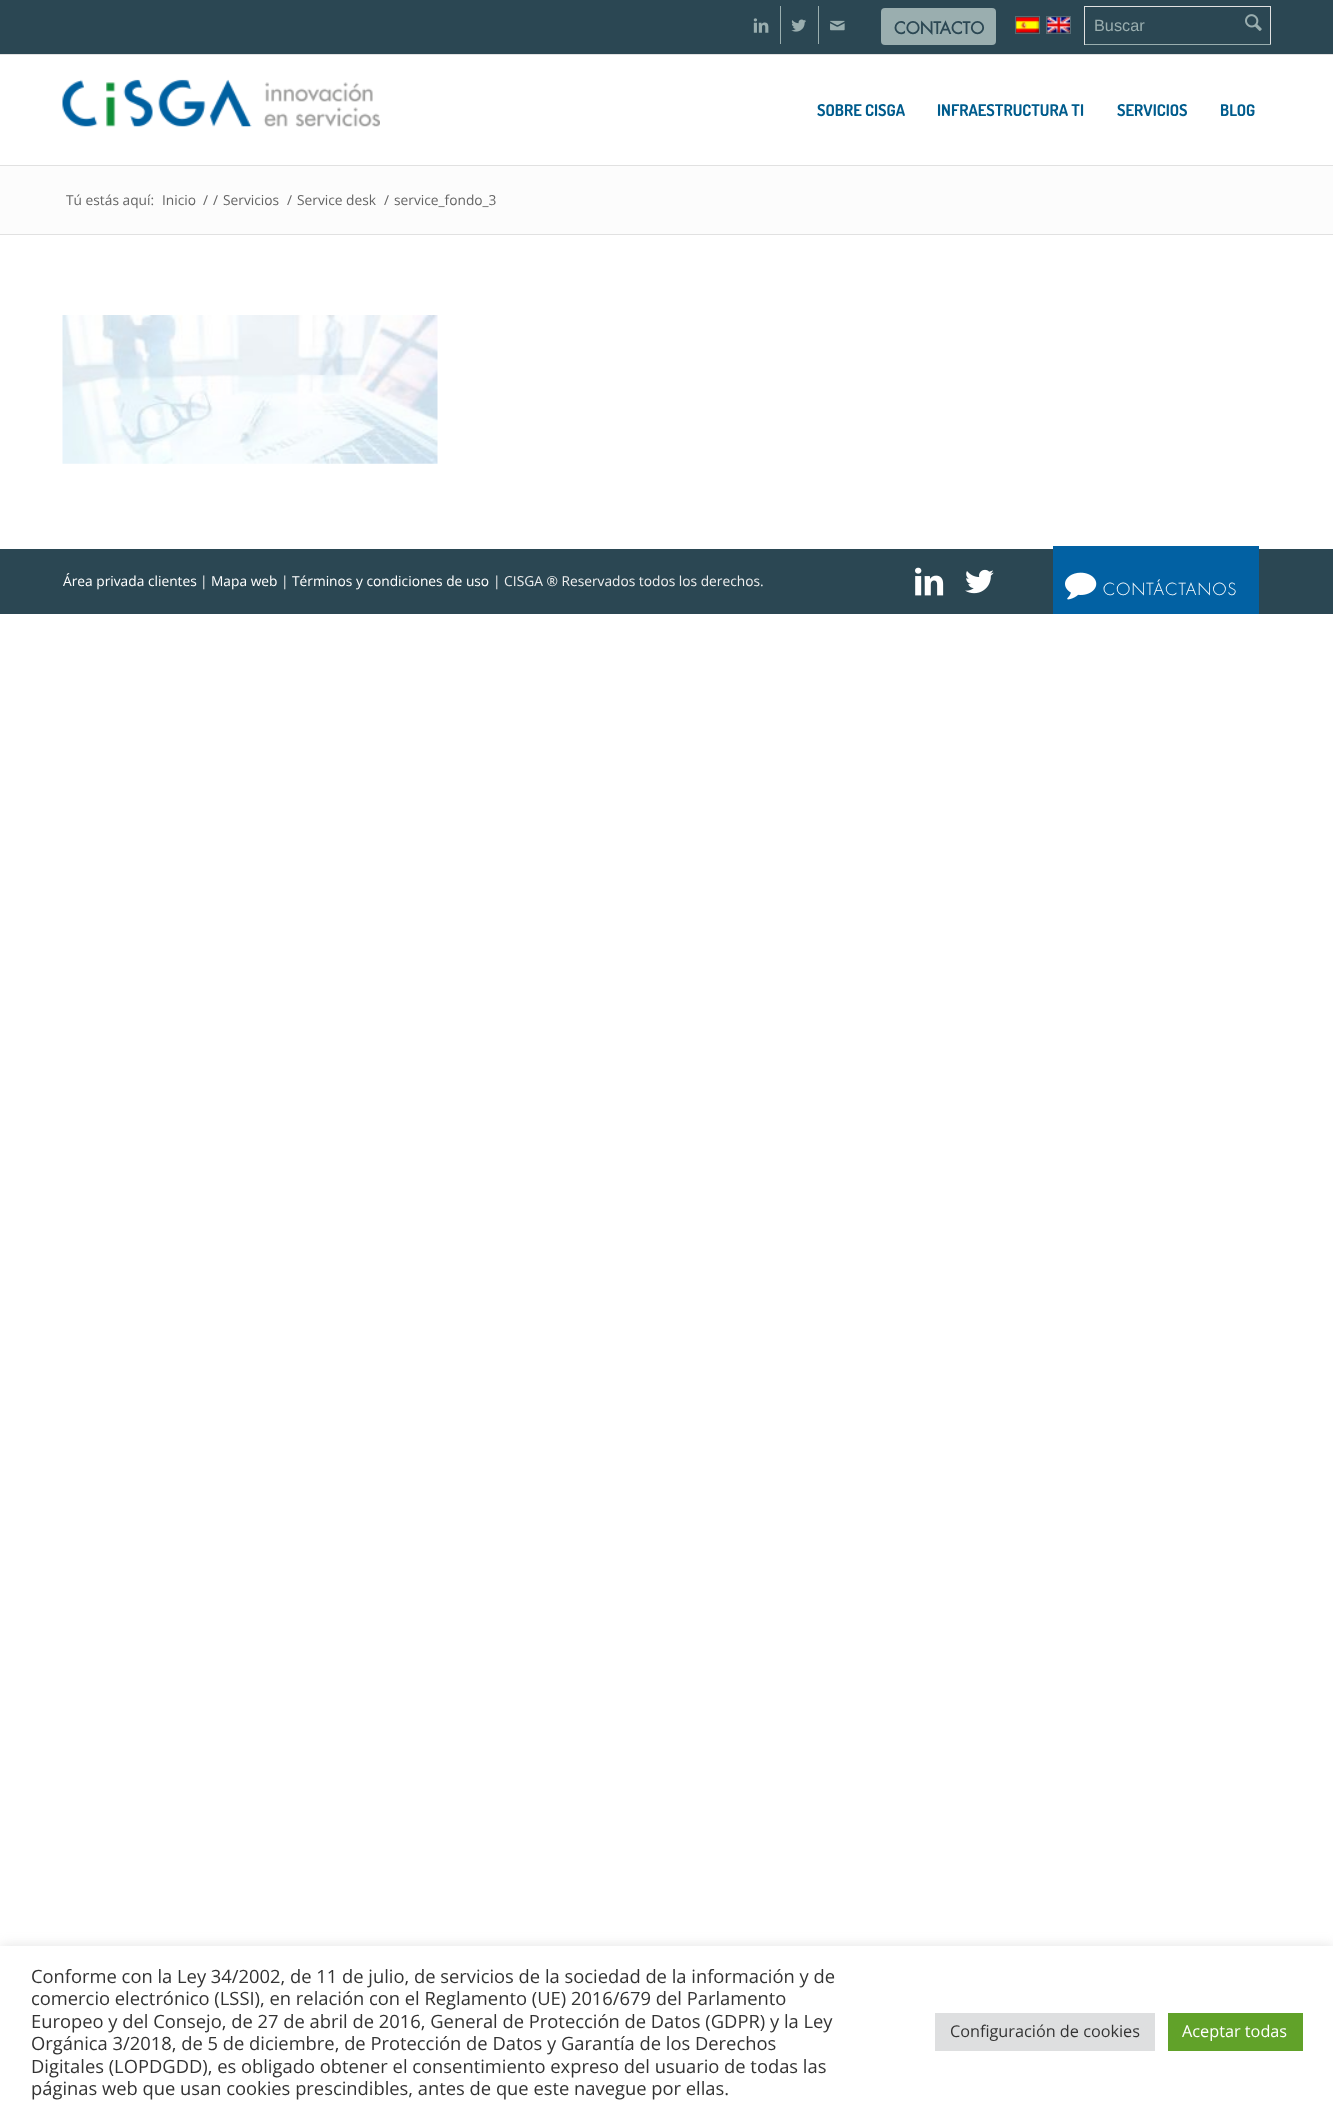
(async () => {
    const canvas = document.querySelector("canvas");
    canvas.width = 1333;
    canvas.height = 2116;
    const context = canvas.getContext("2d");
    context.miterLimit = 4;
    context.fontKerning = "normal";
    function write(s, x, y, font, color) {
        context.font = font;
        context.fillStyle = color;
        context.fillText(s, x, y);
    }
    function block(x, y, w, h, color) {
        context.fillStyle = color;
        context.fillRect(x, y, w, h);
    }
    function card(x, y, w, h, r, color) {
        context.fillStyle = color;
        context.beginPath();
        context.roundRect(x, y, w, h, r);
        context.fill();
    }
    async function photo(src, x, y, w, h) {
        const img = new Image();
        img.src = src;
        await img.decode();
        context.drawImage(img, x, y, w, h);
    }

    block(0, 0, 1333, 2116, "rgb(255, 255, 255)");
    block(0, 0, 1333, 54, "rgb(43, 71, 83)");
    block(0, 54, 1333, 1, "rgb(225, 225, 225)");
    block(780, 6, 1, 38, "rgb(154, 174, 175)");
    await photo("media/1.png", 753, 18, 16, 15);
    block(818, 6, 1, 38, "rgb(154, 174, 175)");
    await photo("media/2.png", 791, 19, 15, 13);
    await photo("media/3.png", 830, 20, 15, 11);
    card(881, 8, 115, 37, 4, "rgb(154, 174, 175)");
    write("CONTACTO", 894, 34, "bold 16.25px Futura", "rgb(43, 71, 83)");
    context.strokeStyle = "rgb(85, 108, 117)";
    context.strokeRect(1015.5, 16.5, 24, 17);
    await photo("media/4.png", 1016, 17, 23, 17);
    context.strokeRect(1046.5, 16.5, 24, 17);
    await photo("media/5.png", 1047, 17, 23, 17);
    block(1084, 6, 187, 1, "rgb(225, 225, 225)");
    block(1270, 6, 1, 39, "rgb(225, 225, 225)");
    block(1084, 44, 187, 1, "rgb(154, 174, 175)");
    block(1084, 6, 1, 39, "rgb(225, 225, 225)");
    write("Buscar", 1094, 31, "16.25px Liberation Sans", "rgb(154, 174, 175)");
    await photo("media/6.png", 1245, 14, 17, 17);
    block(0, 165, 1333, 1, "rgb(225, 225, 225)");
    await photo("media/7.png", 62, 79, 318, 48);
    write("SOBRE CISGA", 817, 116, "bold 16.25px Dosis", "rgb(0, 92, 141)");
    write("INFRAESTRUCTURA TI", 937, 116, "bold 16.25px Dosis", "rgb(0, 92, 141)");
    write("SERVICIOS", 1117, 116, "bold 16.25px Dosis", "rgb(0, 92, 141)");
    write("BLOG", 1220, 116, "bold 16.25px Dosis", "rgb(0, 92, 141)");
    block(0, 166, 1333, 68, "rgb(252, 252, 252)");
    write("Tú estás aquí:", 66, 205, "13.75px Open Sans", "rgb(102, 102, 102)");
    write("Inicio", 162, 205, "13.75px Open Sans", "rgb(102, 102, 102)");
    write("/", 203, 205, "13.75px Open Sans", "rgb(102, 102, 102)");
    write("/", 213, 205, "13.75px Open Sans", "rgb(102, 102, 102)");
    write("Servicios", 223, 205, "13.75px Open Sans", "rgb(102, 102, 102)");
    write("/", 287, 205, "13.75px Open Sans", "rgb(102, 102, 102)");
    write("Service desk", 297, 205, "13.75px Open Sans", "rgb(102, 102, 102)");
    write("/", 384, 205, "13.75px Open Sans", "rgb(102, 102, 102)");
    write("service_fondo_3", 394, 205, "13.75px Open Sans", "rgb(102, 102, 102)");
    block(0, 234, 1333, 1, "rgb(225, 225, 225)");
    await photo("media/8.png", 62, 315, 376, 149);
    block(0, 549, 1333, 65, "rgb(43, 71, 83)");
    write("Área privada clientes", 63, 586, "13.75px Open Sans", "rgb(255, 255, 255)");
    write("|", 200, 586, "13.75px Open Sans", "rgb(238, 238, 238)");
    write("Mapa web", 211, 586, "13.75px Open Sans", "rgb(255, 255, 255)");
    write("|", 281, 586, "13.75px Open Sans", "rgb(238, 238, 238)");
    write("Términos y condiciones de uso", 292, 586, "13.75px Open Sans", "rgb(255, 255, 255)");
    write("| CISGA ® Reservados todos los derechos.", 493, 586, "13.75px Open Sans", "rgb(238, 238, 238)");
    await photo("media/9.png", 915, 567, 29, 29);
    await photo("media/10.png", 965, 569, 29, 25);
    block(1053, 546, 206, 68, "rgb(2, 97, 163)");
    await photo("media/11.png", 1065, 572, 32, 28);
    context.letterSpacing = "1.25px";
    write("CONTÁCTANOS", 1103, 595, "300 16.25px Futura", "rgb(255, 255, 255)");
    context.fillStyle = "rgba(172, 171, 171, 0.3)";
    context.filter = "blur(6px)";
    context.beginPath();
    context.rect(0, 1945, 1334, 170);
    context.fill();
    context.filter = "none";
    block(0, 1946, 1333, 170, "rgb(255, 255, 255)");
    context.letterSpacing = "0px";
    write("Conforme con la Ley 34/2002, de 11 de julio, de servicios de la sociedad de la información y de", 31, 1983, "18.35px Open Sans", "rgb(51, 51, 51)");
    write("comercio electrónico (LSSI), en relación con el Reglamento (UE) 2016/679 del Parlamento", 31, 2005, "18.35px Open Sans", "rgb(51, 51, 51)");
    write("Europeo y del Consejo, de 27 de abril de 2016, General de Protección de Datos (GDPR) y la Ley", 31, 2028, "18.35px Open Sans", "rgb(51, 51, 51)");
    write("Orgánica 3/2018, de 5 de diciembre, de Protección de Datos y Garantía de los Derechos", 31, 2050, "18.35px Open Sans", "rgb(51, 51, 51)");
    write("Digitales (LOPDGDD), es obligado obtener el consentimiento expreso del usuario de todas las", 31, 2073, "18.35px Open Sans", "rgb(51, 51, 51)");
    write("páginas web que usan cookies prescindibles, antes de que este navegue por ellas.", 31, 2095, "18.35px Open Sans", "rgb(51, 51, 51)");
    block(935, 2013, 220, 38, "rgb(222, 223, 224)");
    write("Configuración de cookies", 950, 2037, "16.25px Open Sans", "rgb(51, 51, 51)");
    block(1168, 2013, 135, 38, "rgb(97, 162, 41)");
    write("Aceptar todas", 1182, 2037, "16.25px Open Sans", "rgb(255, 255, 255)");
})();
